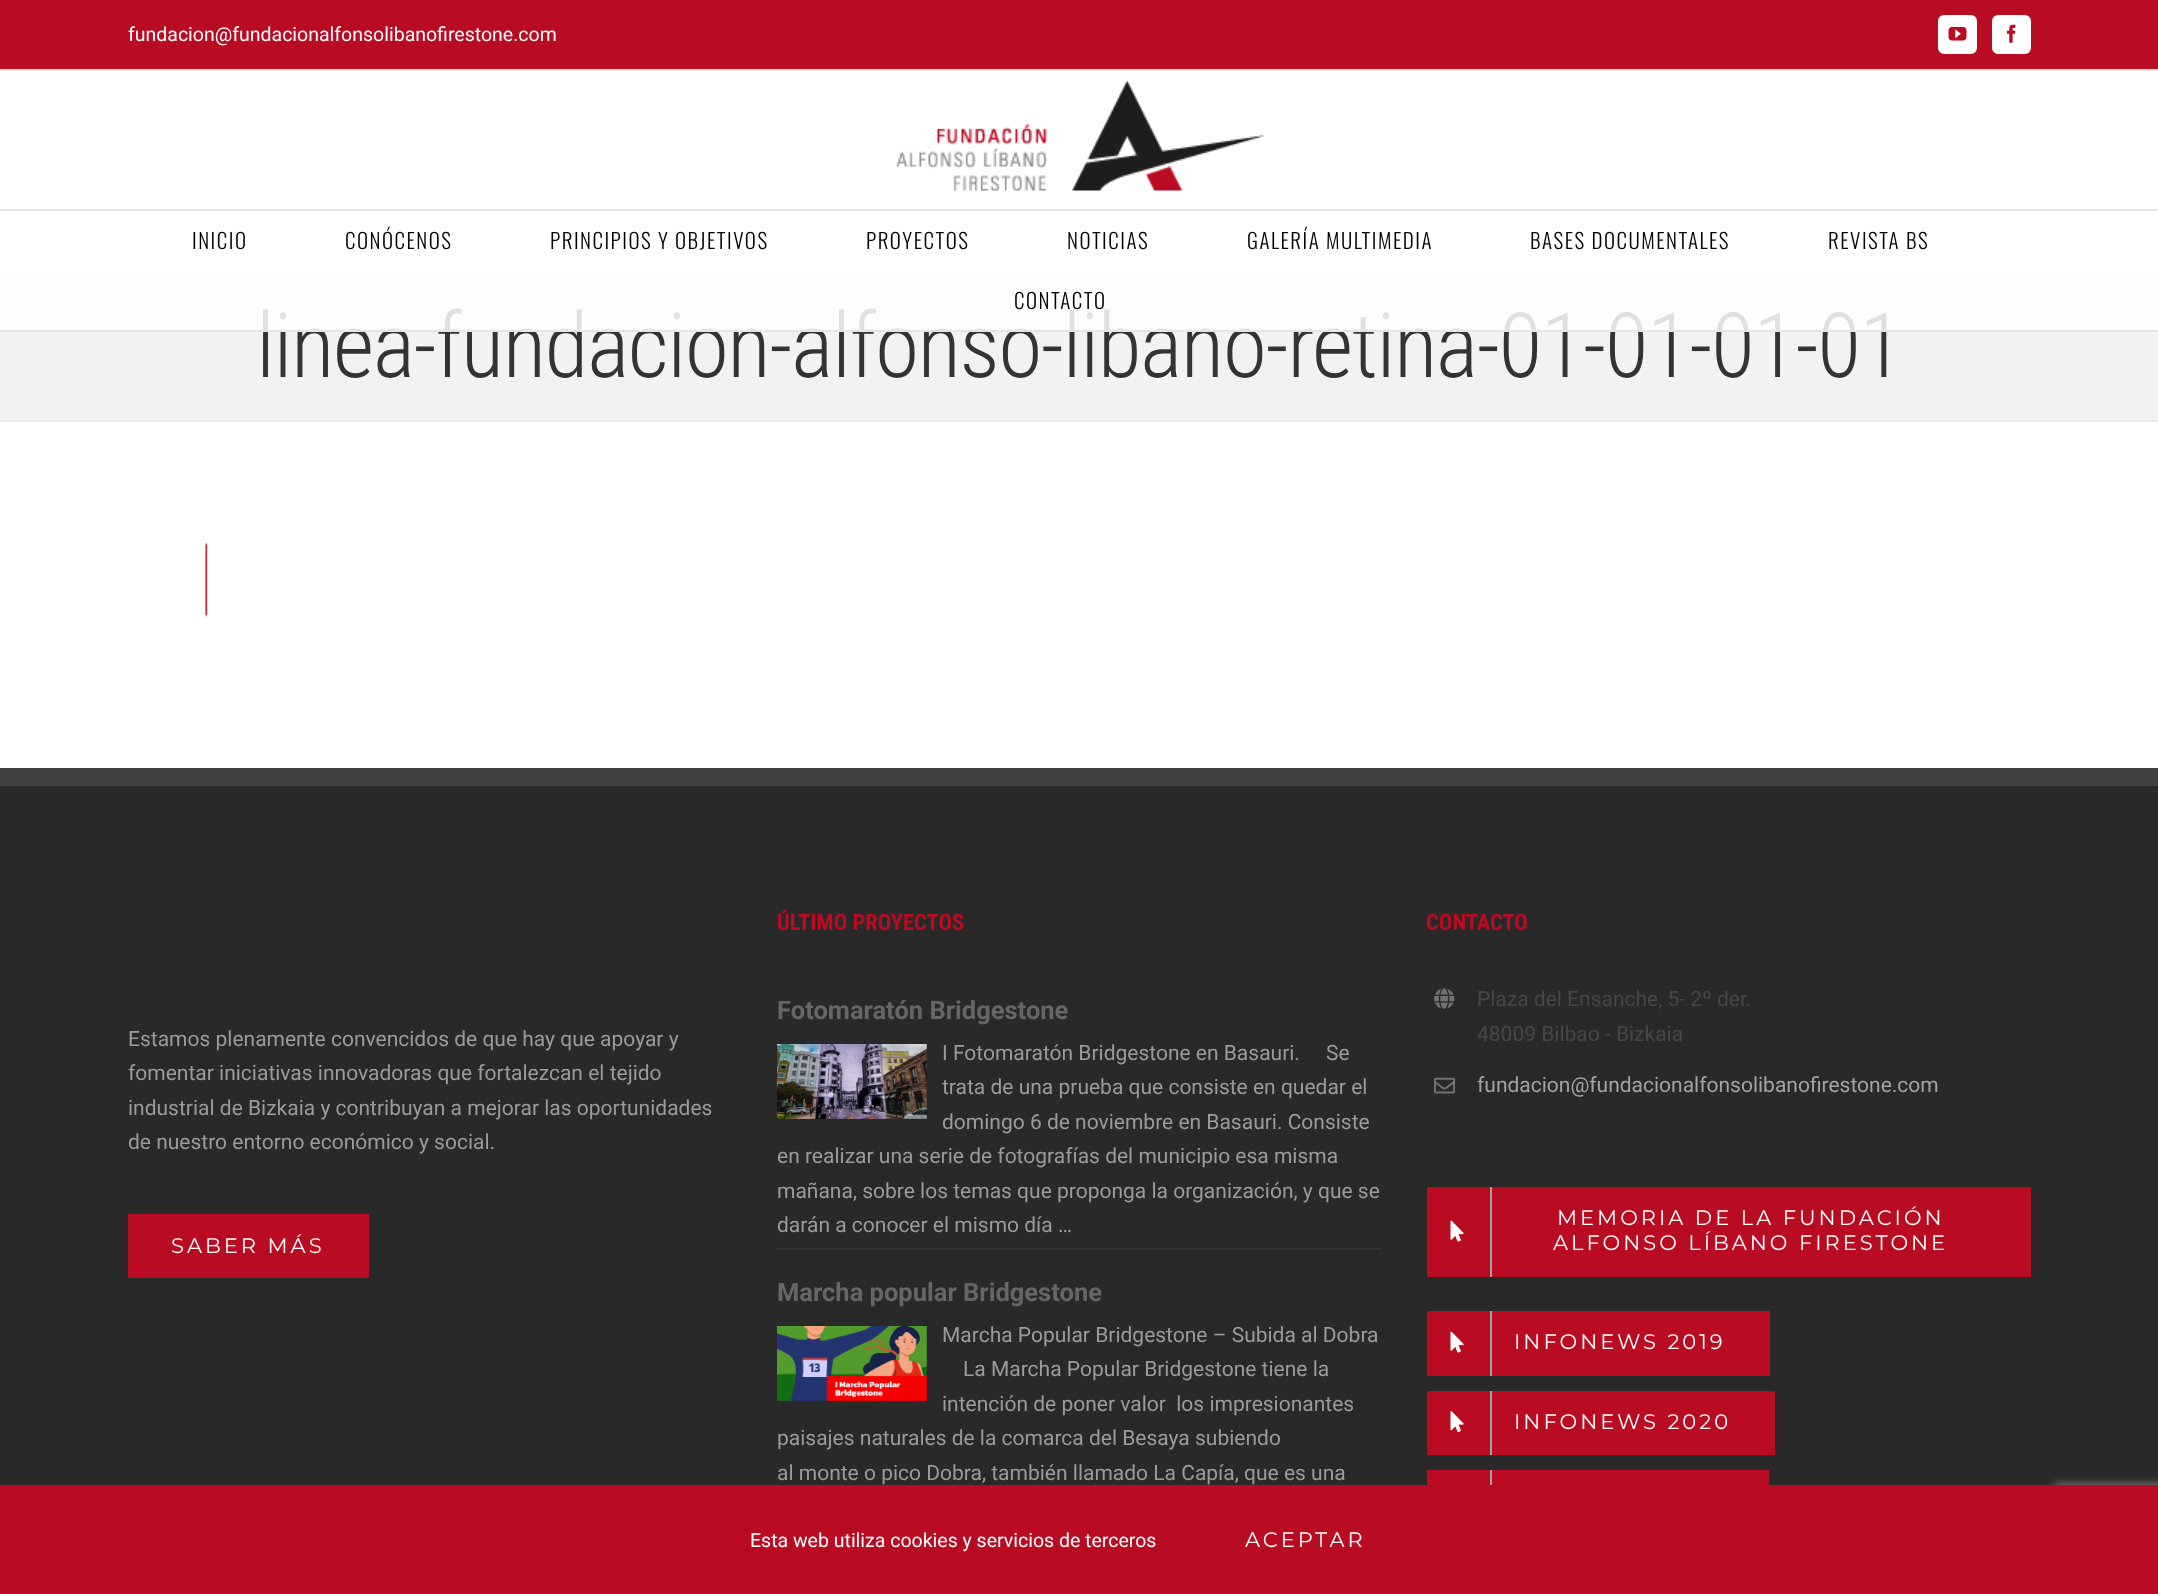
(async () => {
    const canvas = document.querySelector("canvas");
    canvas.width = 2158;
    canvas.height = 1594;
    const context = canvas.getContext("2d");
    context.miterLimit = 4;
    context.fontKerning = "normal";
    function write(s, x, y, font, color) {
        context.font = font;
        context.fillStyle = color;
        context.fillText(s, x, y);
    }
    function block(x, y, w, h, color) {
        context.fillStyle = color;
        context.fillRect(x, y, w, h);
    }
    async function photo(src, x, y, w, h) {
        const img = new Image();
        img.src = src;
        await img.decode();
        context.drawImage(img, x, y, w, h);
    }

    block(0, 0, 2158, 1594, "rgb(255, 255, 255)");
    block(0, 0, 2158, 69, "rgb(185, 11, 34)");
    block(0, 69, 2158, 2, "rgb(229, 229, 229)");
    write("fundacion@fundacionalfonsolibanofirestone.com", 128, 41, "19.5px Roboto", "rgb(255, 255, 255)");
    context.beginPath();
    context.roundRect(1939, 16, 37, 37, 5);
    context.fill();
    context.strokeStyle = "rgb(255, 255, 255)";
    context.lineWidth = 2;
    context.stroke();
    await photo("media/1.png", 1948, 27, 19, 14);
    context.beginPath();
    context.roundRect(1993, 16, 37, 37, 5);
    context.fill();
    context.stroke();
    await photo("media/2.png", 2007, 24, 9, 19);
    block(0, 209, 2158, 2, "rgb(229, 229, 229)");
    await photo("media/3.png", 896, 80, 369, 111);
    block(0, 274, 2158, 146, "rgb(242, 242, 242)");
    block(0, 272, 2158, 2, "rgb(234, 234, 234)");
    context.letterSpacing = "-1.5px";
    write("linea-fundacion-alfonso-libano-retina-01-01-01-01", 256, 377, "300 90px Roboto Condensed", "rgb(51, 51, 51)");
    block(0, 272, 2158, 58, "rgba(255, 255, 255, 0.85)");
    block(0, 330, 2158, 2, "rgb(229, 229, 229)");
    context.letterSpacing = "1.5px";
    write("INICIO", 192, 249, "300 21px Oswald", "rgb(0, 0, 0)");
    write("CONÓCENOS", 345, 249, "300 21px Oswald", "rgb(0, 0, 0)");
    write("PRINCIPIOS Y OBJETIVOS", 550, 249, "300 21px Oswald", "rgb(0, 0, 0)");
    write("PROYECTOS", 866, 249, "300 21px Oswald", "rgb(0, 0, 0)");
    write("NOTICIAS", 1067, 249, "300 21px Oswald", "rgb(0, 0, 0)");
    write("GALERÍA MULTIMEDIA", 1247, 249, "300 21px Oswald", "rgb(0, 0, 0)");
    write("BASES DOCUMENTALES", 1530, 249, "300 21px Oswald", "rgb(0, 0, 0)");
    write("REVISTA BS", 1828, 249, "300 21px Oswald", "rgb(0, 0, 0)");
    write("CONTACTO", 1014, 309, "300 21px Oswald", "rgb(0, 0, 0)");
    block(0, 420, 2158, 2, "rgb(234, 234, 234)");
    await photo("media/4.png", 205, 542, 3, 75);
    block(0, 786, 2158, 699, "rgb(41, 41, 41)");
    block(0, 768, 2158, 18, "rgb(63, 63, 63)");
    context.letterSpacing = "0px";
    write("Estamos plenamente convencidos de que hay que apoyar y", 128, 1046, "21px Roboto", "rgb(155, 155, 155)");
    write("fomentar iniciativas innovadoras que fortalezcan el tejido", 128, 1080, "21px Roboto", "rgb(155, 155, 155)");
    write("industrial de Bizkaia y contribuyan a mejorar las oportunidades", 128, 1115, "21px Roboto", "rgb(155, 155, 155)");
    write("de nuestro entorno económico y social.", 128, 1149, "21px Roboto", "rgb(155, 155, 155)");
    block(128, 1214, 241, 64, "rgb(185, 12, 34)");
    context.letterSpacing = "3px";
    write("SABER MÁS", 171, 1253, "100 21px Montserrat", "rgb(255, 255, 255)");
    context.letterSpacing = "0px";
    write("ÚLTIMO PROYECTOS", 777, 930, "bold 22.5px Roboto Condensed", "rgb(185, 12, 34)");
    block(777, 1248, 605, 2, "rgb(51, 51, 51)");
    write("Fotomaratón Bridgestone", 777, 1019, "bold 25.5px Roboto", "rgb(102, 102, 102)");
    await photo("media/5.png", 777, 1044, 150, 75);
    write("I Fotomaratón Bridgestone en Basauri.     Se", 942, 1060, "21px Roboto", "rgb(155, 155, 155)");
    write("trata de una prueba que consiste en quedar el", 942, 1094, "21px Roboto", "rgb(155, 155, 155)");
    write("domingo 6 de noviembre en Basauri. Consiste", 942, 1129, "21px Roboto", "rgb(155, 155, 155)");
    write("en realizar una serie de fotografías del municipio esa misma", 777, 1163, "21px Roboto", "rgb(155, 155, 155)");
    write("mañana, sobre los temas que proponga la organización, y que se", 777, 1198, "21px Roboto", "rgb(155, 155, 155)");
    write("darán a conocer el mismo día", 777, 1232, "21px Roboto", "rgb(155, 155, 155)");
    write("…", 1058, 1232, "21px Roboto", "rgb(163, 163, 163)");
    write("Marcha popular Bridgestone", 777, 1301, "bold 25.5px Roboto", "rgb(102, 102, 102)");
    await photo("media/6.png", 777, 1326, 150, 75);
    write("Marcha Popular Bridgestone – Subida al Dobra", 942, 1342, "21px Roboto", "rgb(155, 155, 155)");
    write("La Marcha Popular Bridgestone tiene la", 963, 1376, "21px Roboto", "rgb(155, 155, 155)");
    write("intención de poner valor  los impresionantes", 942, 1411, "21px Roboto", "rgb(155, 155, 155)");
    write("paisajes naturales de la comarca del Besaya subiendo", 777, 1445, "21px Roboto", "rgb(155, 155, 155)");
    write("al monte o pico Dobra, también llamado La Capía, que es una", 777, 1480, "21px Roboto", "rgb(155, 155, 155)");
    write("CONTACTO", 1426, 930, "bold 22.5px Roboto Condensed", "rgb(185, 12, 34)");
    await photo("media/7.png", 1434, 988, 21, 21);
    write("Plaza del Ensanche, 5- 2º der.", 1477, 1006, "21px Roboto", "rgb(71, 71, 71)");
    write("48009 Bilbao - Bizkaia", 1477, 1041, "21px Roboto", "rgb(71, 71, 71)");
    await photo("media/8.png", 1434, 1077, 21, 17);
    write("fundacion@fundacionalfonsolibanofirestone.com", 1477, 1092, "21px Roboto", "rgb(163, 163, 163)");
    block(1427, 1187, 604, 90, "rgb(185, 12, 34)");
    block(1490, 1187, 2, 90, "rgb(163, 163, 163)");
    await photo("media/9.png", 1450, 1220, 14, 22);
    context.letterSpacing = "3px";
    write("MEMORIA DE LA FUNDACIÓN", 1557, 1225, "100 21px Montserrat", "rgb(255, 255, 255)");
    write("ALFONSO LÍBANO FIRESTONE", 1553, 1250, "100 21px Montserrat", "rgb(255, 255, 255)");
    block(1427, 1311, 343, 65, "rgb(185, 12, 34)");
    block(1490, 1311, 2, 65, "rgb(163, 163, 163)");
    await photo("media/9.png", 1450, 1331, 14, 22);
    write("INFONEWS 2019", 1514, 1349, "100 21px Montserrat", "rgb(255, 255, 255)");
    block(1427, 1391, 348, 64, "rgb(185, 12, 34)");
    block(1490, 1391, 2, 64, "rgb(163, 163, 163)");
    await photo("media/10.png", 1450, 1411, 14, 22);
    write("INFONEWS 2020", 1514, 1429, "100 21px Montserrat", "rgb(255, 255, 255)");
    block(1427, 1470, 342, 15, "rgb(185, 12, 34)");
    block(1490, 1470, 2, 15, "rgb(163, 163, 163)");
    context.fillStyle = "rgb(128, 128, 128)";
    context.filter = "blur(4px)";
    context.beginPath();
    context.roundRect(2054, 1484, 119, 90, 3);
    context.fill();
    context.filter = "none";
    block(0, 1485, 2158, 109, "rgb(185, 12, 34)");
    context.letterSpacing = "0px";
    write("Esta web utiliza cookies y servicios de terceros", 750, 1547, "19.5px Roboto", "rgb(255, 255, 255)");
    context.letterSpacing = "3px";
    write("ACEPTAR", 1245, 1547, "100 21px Montserrat", "rgb(255, 255, 255)");
})();
